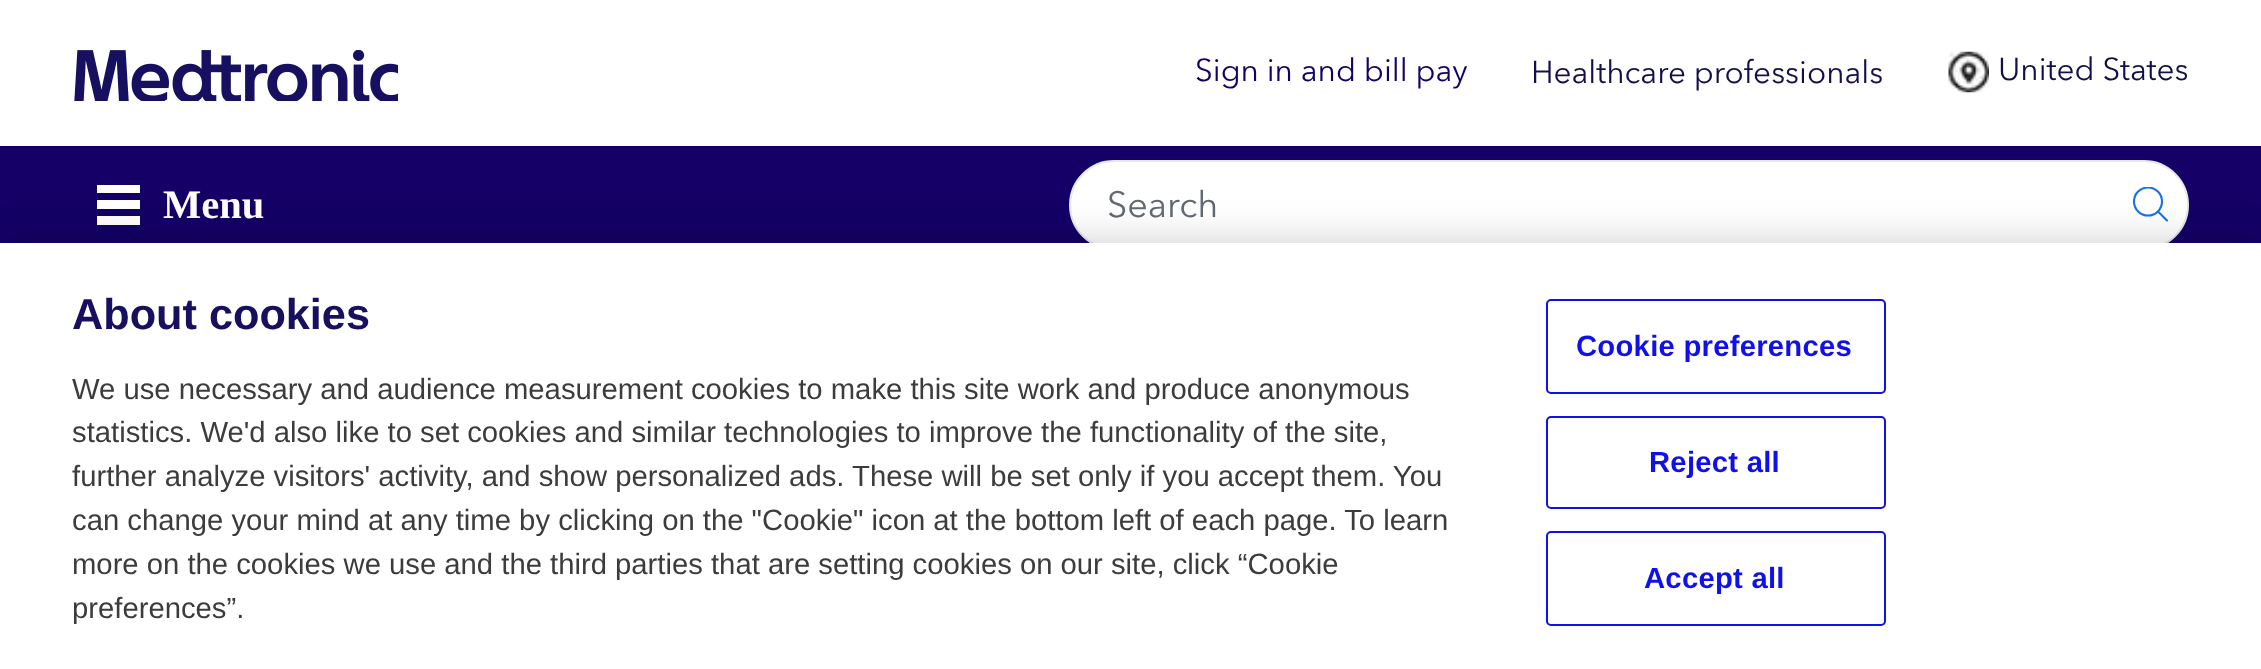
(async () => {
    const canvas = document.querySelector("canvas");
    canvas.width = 2261;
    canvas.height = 669;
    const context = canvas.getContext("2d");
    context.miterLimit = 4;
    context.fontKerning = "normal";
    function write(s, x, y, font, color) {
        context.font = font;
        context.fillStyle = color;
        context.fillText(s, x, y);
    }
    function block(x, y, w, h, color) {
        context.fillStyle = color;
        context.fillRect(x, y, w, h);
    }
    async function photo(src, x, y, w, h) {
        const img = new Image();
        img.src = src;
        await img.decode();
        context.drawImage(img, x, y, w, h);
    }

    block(0, 0, 2261, 669, "rgb(255, 255, 255)");
    await photo("media/1.png", 74, 50, 324, 51);
    write("Sign in and bill pay", 1195, 81, "31.5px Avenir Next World", "rgb(20, 0, 102)");
    write("Healthcare professionals", 1531, 83, "31.5px Avenir Next World", "rgb(20, 15, 75)");
    await photo("media/2.png", 1948, 51, 41, 42);
    write("United States", 1998, 80, "31.5px Avenir Next World", "rgb(20, 15, 75)");
    block(0, 146, 2261, 97, "rgb(20, 0, 102)");
    context.save();
    context.beginPath();
    context.rect(97, 185, 43, 40);
    context.clip();
    context.fillStyle = "rgb(255, 255, 255)";
    context.beginPath();
    context.moveTo(97, 225);
    context.lineTo(142, 225);
    context.lineTo(142, 216);
    context.lineTo(97, 216);
    context.closePath();
    context.moveTo(97, 209);
    context.lineTo(142, 209);
    context.lineTo(142, 200);
    context.lineTo(97, 200);
    context.closePath();
    context.moveTo(97, 185);
    context.lineTo(97, 193);
    context.lineTo(142, 193);
    context.lineTo(142, 185);
    context.closePath();
    context.fill();
    context.restore();
    write("Menu", 163, 218, "bold 40.5px Liberation Serif", "rgb(255, 255, 255)");
    context.beginPath();
    context.roundRect(1070, 161, 1118, 88, 44);
    context.fill();
    context.strokeStyle = "rgb(229, 232, 232)";
    context.lineWidth = 2;
    context.stroke();
    write("Search", 1107, 217, "36px Avenir Next World", "rgb(98, 105, 113)");
    context.fillStyle = "rgb(255, 255, 255)";
    context.beginPath();
    context.arc(2151, 205, 36, 0, Math.PI * 2);
    context.fill();
    context.save();
    context.beginPath();
    context.rect(2133, 187, 36, 36);
    context.clip();
    context.beginPath();
    context.arc(2148, 201.5, 14, 0, Math.PI * 2);
    context.strokeStyle = "rgb(19, 114, 236)";
    context.lineWidth = 2.1;
    context.stroke();
    context.restore();
    context.beginPath();
    context.moveTo(2167, 220.5);
    context.lineTo(2158.5, 212);
    context.strokeStyle = "rgb(19, 114, 236)";
    context.lineWidth = 2.1;
    context.lineCap = "round";
    context.lineJoin = "round";
    context.stroke();
    context.fillStyle = "rgba(0, 0, 0, 0.2)";
    context.filter = "blur(20px)";
    context.beginPath();
    context.rect(0, 243, 2261, 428);
    context.fill();
    context.filter = "none";
    block(0, 243, 2261, 426, "rgb(255, 255, 255)");
    write("About cookies", 72, 329, "bold 43.25px Liberation Sans", "rgb(23, 15, 95)");
    write("We use necessary and audience measurement cookies to make this site work and produce anonymous", 72, 399, "29.25px Liberation Sans", "rgb(60, 60, 60)");
    write("statistics. We'd also like to set cookies and similar technologies to improve the functionality of the site,", 72, 442, "29.25px Liberation Sans", "rgb(60, 60, 60)");
    write("further analyze visitors' activity, and show personalized ads. These will be set only if you accept them. You", 72, 486, "29.25px Liberation Sans", "rgb(60, 60, 60)");
    write("can change your mind at any time by clicking on the \"Cookie\" icon at the bottom left of each page. To learn", 72, 530, "29.25px Liberation Sans", "rgb(60, 60, 60)");
    write("more on the cookies we use and the third parties that are setting cookies on our site, click “Cookie", 72, 574, "29.25px Liberation Sans", "rgb(60, 60, 60)");
    write("preferences”.", 72, 618, "29.25px Liberation Sans", "rgb(60, 60, 60)");
    context.beginPath();
    context.roundRect(1547, 300, 338, 93, 4);
    context.strokeStyle = "rgb(16, 16, 235)";
    context.lineWidth = 2;
    context.lineJoin = "miter";
    context.stroke();
    context.letterSpacing = "0.25px";
    write("Cookie preferences", 1576, 356, "bold 29.25px Liberation Sans", "rgb(16, 16, 235)");
    context.beginPath();
    context.roundRect(1547, 417, 338, 91, 4);
    context.stroke();
    write("Reject all", 1649, 472, "bold 29.25px Liberation Sans", "rgb(16, 16, 235)");
    context.beginPath();
    context.roundRect(1547, 532, 338, 93, 4);
    context.stroke();
    write("Accept all", 1644, 588, "bold 29.25px Liberation Sans", "rgb(16, 16, 235)");
})();
